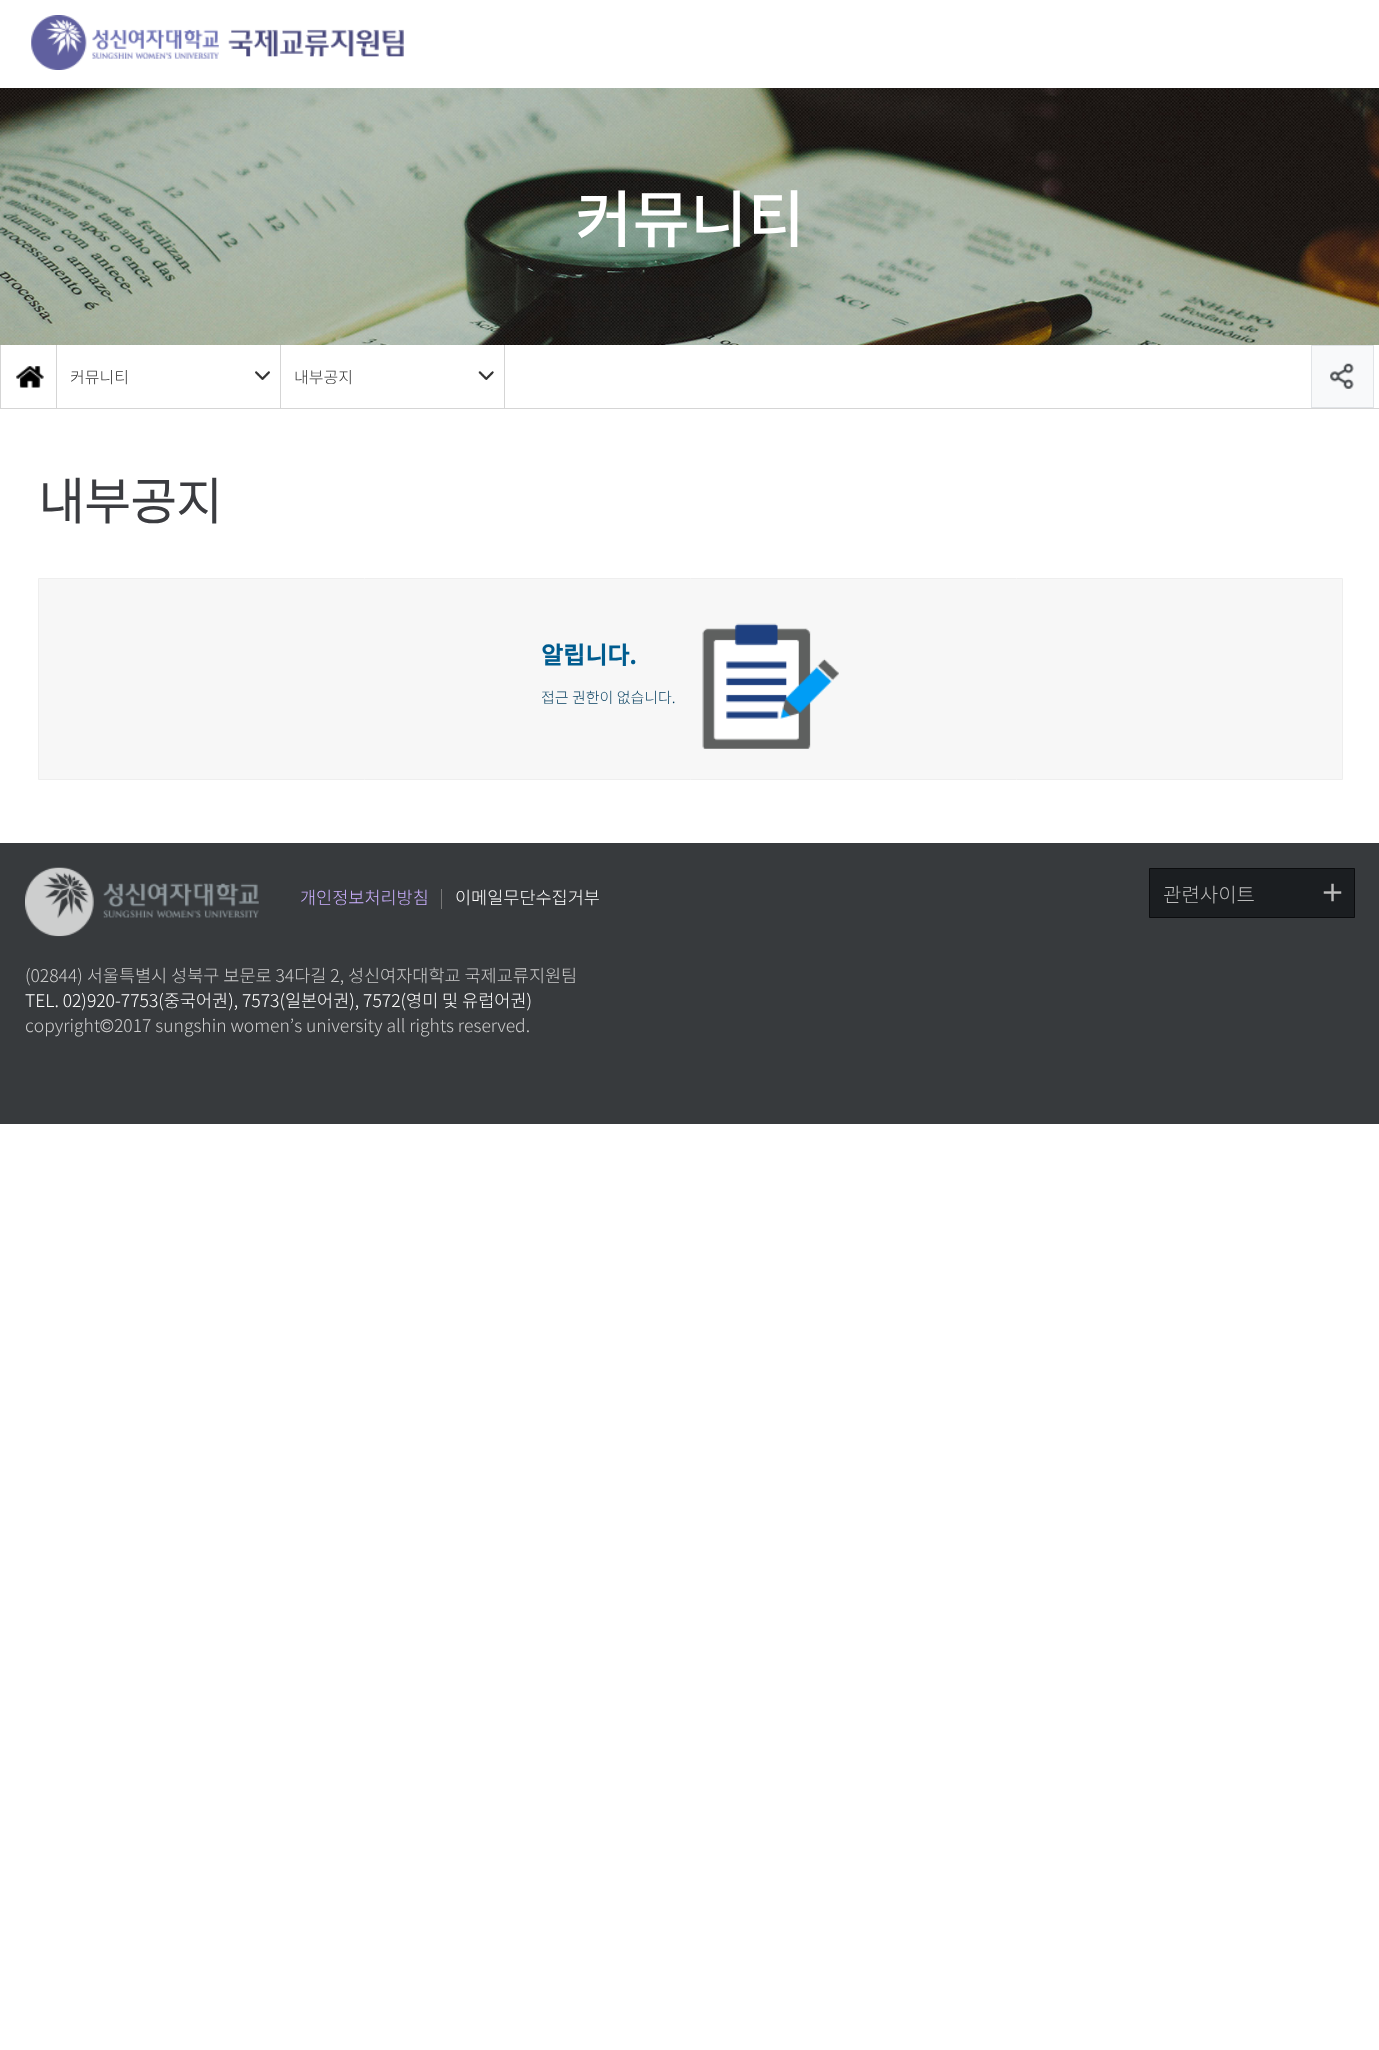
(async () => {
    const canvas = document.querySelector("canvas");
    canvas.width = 1379;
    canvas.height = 2050;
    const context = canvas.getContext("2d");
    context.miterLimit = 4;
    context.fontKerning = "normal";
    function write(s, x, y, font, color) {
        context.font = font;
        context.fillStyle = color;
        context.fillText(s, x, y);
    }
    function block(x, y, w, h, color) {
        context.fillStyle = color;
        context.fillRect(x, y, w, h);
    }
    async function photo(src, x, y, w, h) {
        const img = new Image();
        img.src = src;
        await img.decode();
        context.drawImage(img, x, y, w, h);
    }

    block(0, 0, 1379, 2050, "rgb(255, 255, 255)");
    await photo("media/1.png", 31, 15, 373, 55);
    await photo("media/2.png", 0, 88, 1379, 257);
    write("커뮤니티", 575, 242, "500 62.5px Noto Sans KR", "rgb(255, 255, 255)");
    block(0, 408, 1379, 1, "rgb(213, 213, 213)");
    await photo("media/3.png", 16, 366, 28, 22);
    block(0, 345, 1, 63, "rgb(213, 213, 213)");
    block(280, 345, 1, 63, "rgb(213, 213, 213)");
    block(56, 345, 1, 63, "rgb(213, 213, 213)");
    write("커뮤니티", 70, 383, "300 16px Noto Sans KR", "rgb(51, 51, 51)");
    await photo("media/4.png", 255, 371, 15, 9);
    block(504, 345, 1, 63, "rgb(213, 213, 213)");
    write("내부공지", 294, 383, "300 16px Noto Sans KR", "rgb(51, 51, 51)");
    await photo("media/5.png", 478, 371, 16, 9);
    block(1312, 346, 61, 61, "rgb(248, 249, 250)");
    await photo("media/6.png", 1330, 363, 24, 26);
    context.strokeStyle = "rgb(225, 228, 231)";
    context.strokeRect(1311.5, 345.5, 62, 62);
    write("내부공지", 38, 520, "bold 50px Noto Sans KR", "rgb(59, 60, 64)");
    context.fillStyle = "rgb(247, 247, 247)";
    context.beginPath();
    context.rect(38.5, 578.5, 1304, 201);
    context.fill();
    context.strokeStyle = "rgb(238, 238, 238)";
    context.stroke();
    await photo("media/7.png", 702, 623, 137, 126);
    write("알립니다.", 541, 664, "bold 24px 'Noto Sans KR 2'", "rgb(0, 92, 143)");
    write("접근 권한이 없습니다.", 541, 703, "300 15px Noto Sans KR", "rgb(0, 59, 92)");
    block(0, 843, 1379, 281, "rgb(55, 58, 61)");
    await photo("media/8.png", 25, 867, 234, 70);
    write("개인정보처리방침", 300, 904, "300 17.5px Noto Sans KR", "rgb(203, 176, 255)");
    block(441, 889, 1, 20, "rgb(119, 119, 119)");
    write("이메일무단수집거부", 455, 904, "300 17.5px Noto Sans KR", "rgb(255, 255, 255)");
    context.fillStyle = "rgb(27, 30, 33)";
    context.beginPath();
    context.rect(1149.5, 868.5, 205, 49);
    context.fill();
    context.strokeStyle = "rgb(11, 12, 14)";
    context.stroke();
    await photo("media/9.png", 1323, 883, 19, 19);
    write("관련사이트", 1163, 902, "300 20px Noto Sans KR", "rgb(188, 188, 188)");
    write("(02844) 서울특별시 성북구 보문로 34다길 2, 성신여자대학교 국제교류지원팀", 25, 982, "300 17.5px Noto Sans KR", "rgb(204, 204, 204)");
    write("TEL. 02)920-7753(중국어권), 7573(일본어권), 7572(영미 및 유럽어권)", 25, 1007, "300 17.5px Noto Sans KR", "rgb(255, 255, 255)");
    write("copyright", 25, 1032, "300 17.5px Noto Sans KR", "rgb(204, 204, 204)");
    write("©", 100, 1032, "17.5px Dotum", "rgb(204, 204, 204)");
    write("2017 sungshin women’s university all rights reserved.", 114, 1032, "300 17.5px Noto Sans KR", "rgb(204, 204, 204)");
})();
